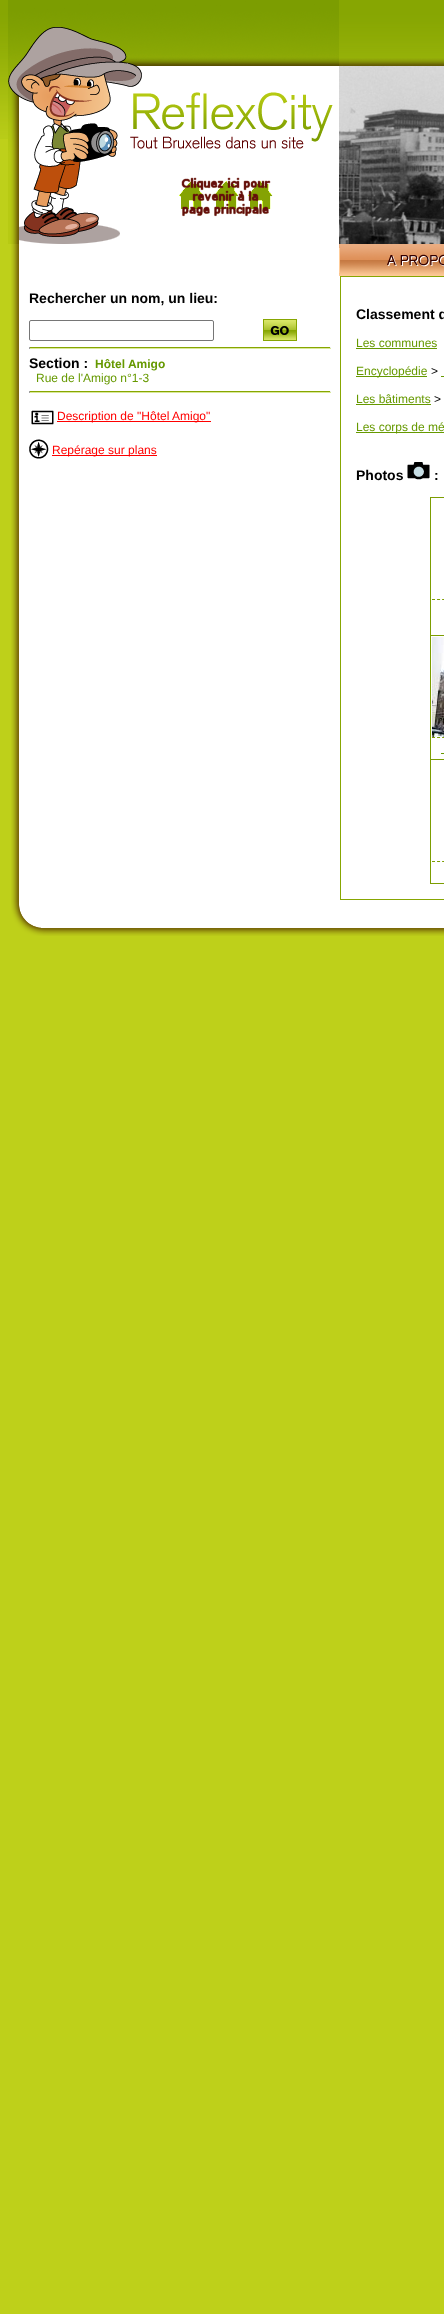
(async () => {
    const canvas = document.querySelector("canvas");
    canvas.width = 444;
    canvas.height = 2314;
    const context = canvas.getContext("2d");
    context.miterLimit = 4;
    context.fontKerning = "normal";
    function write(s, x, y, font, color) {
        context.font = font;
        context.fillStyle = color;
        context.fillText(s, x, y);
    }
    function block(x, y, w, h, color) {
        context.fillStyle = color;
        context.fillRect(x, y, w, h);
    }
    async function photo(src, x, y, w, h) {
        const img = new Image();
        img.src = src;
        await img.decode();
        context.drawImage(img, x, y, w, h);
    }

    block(0, 0, 444, 2314, "rgb(190, 208, 26)");
    await photo("media/1.png", 0, 0, 444, 139);
    await photo("media/2.png", 8, 0, 331, 244);
    await photo("media/3.png", 339, 58, 105, 8);
    await photo("media/4.png", 339, 66, 105, 178);
    await photo("media/5.png", 11, 244, 328, 32);
    await photo("media/6.png", 339, 244, 105, 32);
    await photo("media/7.png", 11, 276, 433, 626);
    write("Rechercher un nom, un lieu:", 29, 303, "bold 14px Liberation Sans", "rgb(0, 0, 0)");
    context.beginPath();
    context.roundRect(29.5, 320.5, 184, 20, 1.5);
    context.strokeStyle = "rgb(118, 118, 118)";
    context.stroke();
    await photo("media/8.png", 263, 319, 34, 22);
    block(29, 347, 302, 1, "rgb(135, 166, 2)");
    block(330, 347, 1, 2, "rgb(238, 238, 238)");
    block(29, 348, 302, 1, "rgb(217, 233, 151)");
    block(29, 347, 1, 2, "rgb(159, 159, 159)");
    write("Section :", 29, 368, "bold 14px Liberation Sans", "rgb(0, 0, 0)");
    write("Hôtel Amigo", 95, 368, "bold 12px Liberation Sans", "rgb(102, 153, 0)");
    write("Rue de l'Amigo n°1-3", 36, 382, "12px Liberation Sans", "rgb(102, 153, 0)");
    block(29, 391, 302, 1, "rgb(135, 166, 2)");
    block(330, 391, 1, 2, "rgb(238, 238, 238)");
    block(29, 392, 302, 1, "rgb(217, 233, 151)");
    block(29, 391, 1, 2, "rgb(159, 159, 159)");
    await photo("media/9.png", 31, 410, 23, 15);
    block(57, 421, 154, 1, "rgb(255, 0, 0)");
    write("Description de \"Hôtel Amigo\"", 57, 420, "12px Liberation Sans", "rgb(255, 0, 0)");
    await photo("media/10.png", 29, 439, 20, 20);
    block(52, 455, 105, 1, "rgb(255, 0, 0)");
    write("Repérage sur plans", 52, 454, "12px Liberation Sans", "rgb(255, 0, 0)");
    context.strokeStyle = "rgb(135, 166, 2)";
    context.strokeRect(340.5, 276.5, 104, 623);
    write("Classement d", 356, 319, "bold 14px Liberation Sans", "rgb(0, 0, 0)");
    write("Les communes", 356, 347, "12px Liberation Sans", "rgb(102, 153, 0)");
    block(356, 348, 81, 1, "rgb(102, 153, 0)");
    block(356, 376, 71, 1, "rgb(102, 153, 0)");
    write("Encyclopédie", 356, 375, "12px Liberation Sans", "rgb(102, 153, 0)");
    write(">", 431, 375, "12px Liberation Sans", "rgb(0, 0, 0)");
    block(441, 376, 3, 1, "rgb(102, 153, 0)");
    write("Les bâtiments", 356, 403, "12px Liberation Sans", "rgb(102, 153, 0)");
    block(356, 404, 75, 1, "rgb(102, 153, 0)");
    write(">", 434, 403, "12px Liberation Sans", "rgb(0, 0, 0)");
    block(356, 432, 88, 1, "rgb(102, 153, 0)");
    write("Les corps de mé", 356, 431, "12px Liberation Sans", "rgb(102, 153, 0)");
    write("Photos", 356, 480, "bold 14px Liberation Sans", "rgb(0, 0, 0)");
    await photo("media/11.png", 407, 462, 23, 18);
    write(":", 434, 480, "bold 14px Liberation Sans", "rgb(0, 0, 0)");
    block(430, 497, 14, 1, "rgb(124, 157, 1)");
    block(430, 883, 14, 1, "rgb(124, 157, 1)");
    block(430, 497, 1, 387, "rgb(124, 157, 1)");
    context.beginPath();
    context.moveTo(432, 599.5);
    context.lineTo(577, 599.5);
    context.strokeStyle = "rgb(124, 157, 1)";
    context.setLineDash([3, 2.07]);
    context.stroke();
    block(430, 635, 14, 1, "rgb(124, 157, 1)");
    context.beginPath();
    context.moveTo(432, 737.5);
    context.lineTo(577, 737.5);
    context.stroke();
    await photo("media/12.png", 432, 637, 12, 100);
    block(441, 753, 3, 1, "rgb(102, 153, 0)");
    block(430, 759, 14, 1, "rgb(124, 157, 1)");
    context.beginPath();
    context.moveTo(432, 861.5);
    context.lineTo(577, 861.5);
    context.stroke();
    await photo("media/13.png", 11, 902, 433, 34);
})();
